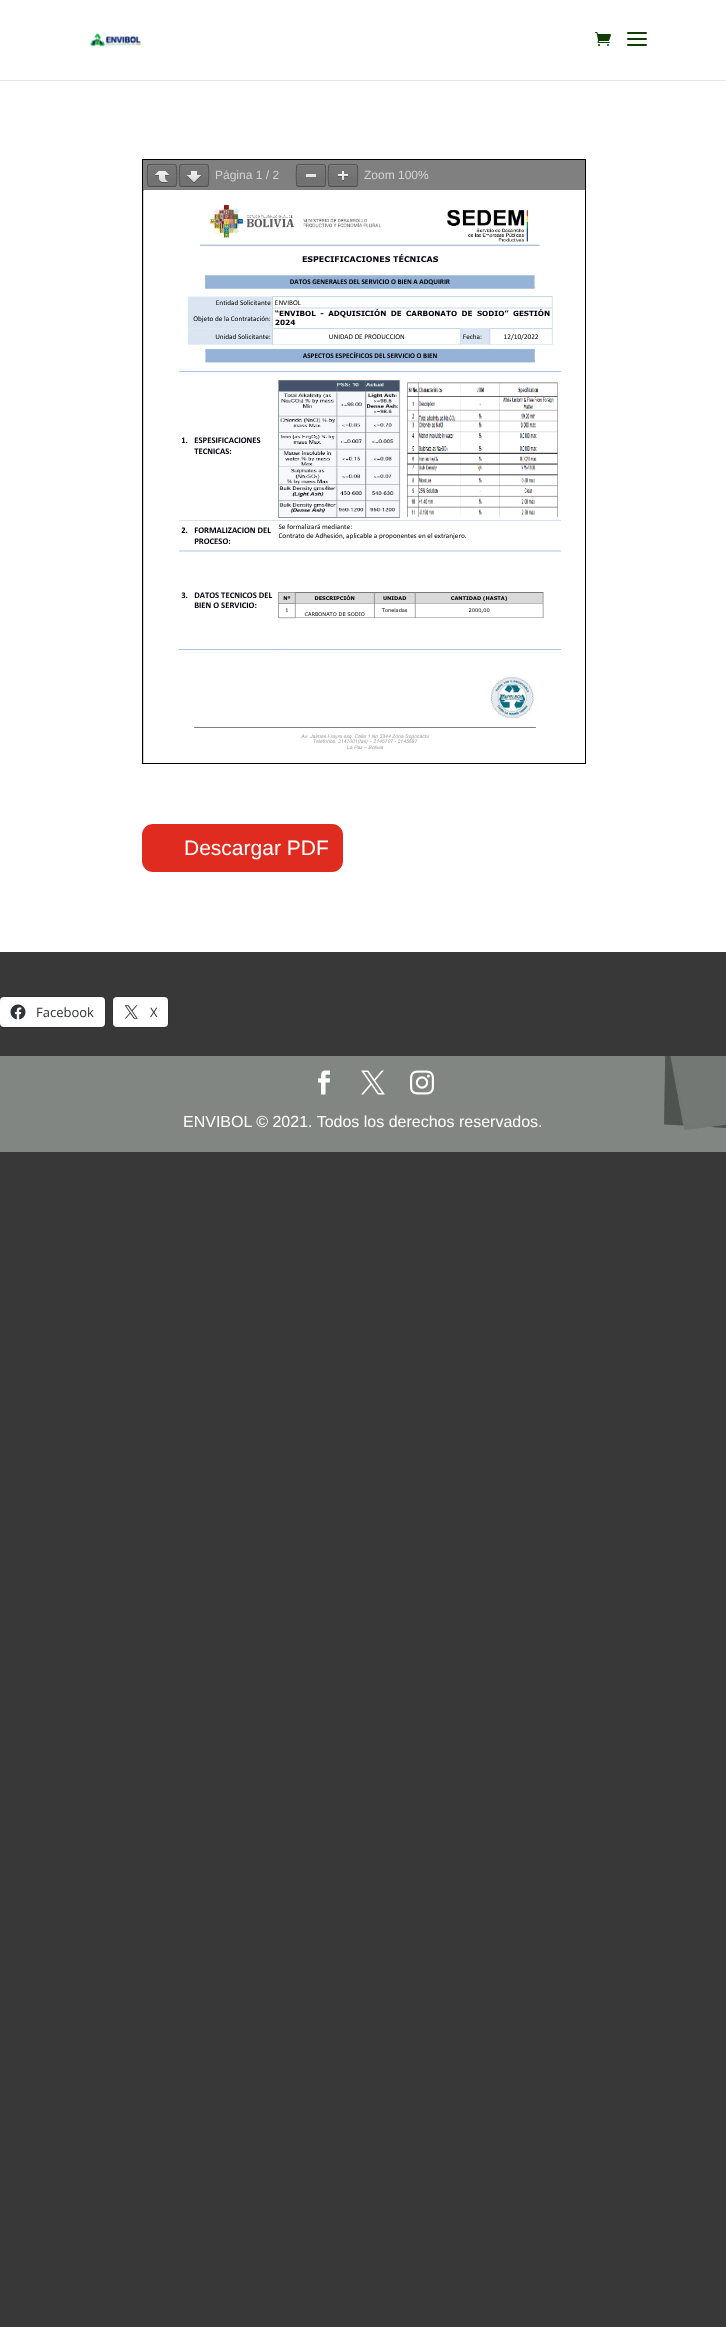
(async () => {
    const canvas = document.querySelector("canvas");
    canvas.width = 726;
    canvas.height = 2327;
    const context = canvas.getContext("2d");
    context.miterLimit = 4;
    context.fontKerning = "normal";
    function write(s, x, y, font, color) {
        context.font = font;
        context.fillStyle = color;
        context.fillText(s, x, y);
    }
    function block(x, y, w, h, color) {
        context.fillStyle = color;
        context.fillRect(x, y, w, h);
    }
    function card(x, y, w, h, r, color) {
        context.fillStyle = color;
        context.beginPath();
        context.roundRect(x, y, w, h, r);
        context.fill();
    }
    async function photo(src, x, y, w, h) {
        const img = new Image();
        img.src = src;
        await img.decode();
        context.drawImage(img, x, y, w, h);
    }
    let gradient;

    block(0, 0, 726, 2327, "rgb(56, 56, 56)");
    block(0, 80, 726, 1, "rgb(230, 230, 230)");
    block(0, 0, 726, 80, "rgb(255, 255, 255)");
    await photo("media/1.png", 90, 33, 51, 14);
    await photo("media/2.png", 595, 32, 16, 14);
    await photo("media/3.png", 627, 32, 20, 14);
    block(0, 81, 726, 871, "rgb(255, 255, 255)");
    block(143, 191, 1, 572, "rgb(211, 211, 211)");
    context.strokeStyle = "rgb(0, 0, 0)";
    context.strokeRect(142.5, 159.5, 443, 604);
    block(143, 160, 442, 31, "rgb(128, 128, 128)");
    context.fillStyle = "rgb(134, 134, 134)";
    context.beginPath();
    context.moveTo(147, 185);
    context.bezierCurveTo(147, 189, 149.5, 188, 153.5, 188);
    context.lineTo(170.5, 188);
    context.bezierCurveTo(174.5, 188, 177, 189, 177, 185);
    context.bezierCurveTo(177, 186, 176, 187, 175, 187);
    context.lineTo(149, 187);
    context.bezierCurveTo(148, 187, 147, 186, 147, 185);
    context.closePath();
    context.fill();
    card(148, 165, 28, 21, 1, "rgb(113, 113, 113)");
    gradient = context.createLinearGradient(162, 165, 162, 186);
    gradient.addColorStop(0, "rgba(255, 255, 255, 0.05)");
    gradient.addColorStop(1, "rgba(255, 255, 255, 0)");
    context.fillStyle = gradient;
    context.fillRect(148, 165, 28, 12);
    context.fillStyle = "rgb(127, 127, 127)";
    context.beginPath();
    context.moveTo(149, 166);
    context.lineTo(176, 166);
    context.lineTo(176, 167);
    context.bezierCurveTo(176, 164, 174, 165, 170.5, 165);
    context.lineTo(153.5, 165);
    context.bezierCurveTo(150, 165, 148, 164, 148, 167);
    context.bezierCurveTo(148, 166, 148, 166, 149, 166);
    context.closePath();
    context.fill();
    context.beginPath();
    context.moveTo(148, 165);
    context.lineTo(149, 164.5);
    context.lineTo(175, 164.5);
    context.lineTo(176, 165);
    context.strokeStyle = "rgb(87, 87, 87)";
    context.stroke();
    context.beginPath();
    context.moveTo(176, 165);
    context.bezierCurveTo(177, 166, 177, 185, 176, 186);
    context.strokeStyle = "rgb(79, 79, 79)";
    context.stroke();
    context.beginPath();
    context.moveTo(176, 186);
    context.lineTo(175, 186.5);
    context.lineTo(149, 186.5);
    context.lineTo(148, 186);
    context.strokeStyle = "rgb(74, 74, 74)";
    context.stroke();
    context.beginPath();
    context.moveTo(148, 186);
    context.bezierCurveTo(147, 185, 147, 166, 148, 165);
    context.strokeStyle = "rgb(79, 79, 79)";
    context.stroke();
    await photo("media/4.png", 155, 171, 14, 12);
    context.fillStyle = "rgb(134, 134, 134)";
    context.beginPath();
    context.moveTo(179, 185);
    context.bezierCurveTo(179, 189, 181.5, 188, 185.5, 188);
    context.lineTo(202.5, 188);
    context.bezierCurveTo(206.5, 188, 209, 189, 209, 185);
    context.bezierCurveTo(209, 186, 208, 187, 207, 187);
    context.lineTo(181, 187);
    context.bezierCurveTo(180, 187, 179, 186, 179, 185);
    context.closePath();
    context.fill();
    card(180, 165, 28, 21, 1, "rgb(113, 113, 113)");
    gradient = context.createLinearGradient(194, 165, 194, 186);
    gradient.addColorStop(0, "rgba(255, 255, 255, 0.05)");
    gradient.addColorStop(1, "rgba(255, 255, 255, 0)");
    context.fillStyle = gradient;
    context.fillRect(180, 165, 28, 12);
    context.fillStyle = "rgb(127, 127, 127)";
    context.beginPath();
    context.moveTo(181, 166);
    context.lineTo(208, 166);
    context.lineTo(208, 167);
    context.bezierCurveTo(208, 164, 206, 165, 202.5, 165);
    context.lineTo(185.5, 165);
    context.bezierCurveTo(182, 165, 180, 164, 180, 167);
    context.bezierCurveTo(180, 166, 180, 166, 181, 166);
    context.closePath();
    context.fill();
    context.beginPath();
    context.moveTo(180, 165);
    context.lineTo(181, 164.5);
    context.lineTo(207, 164.5);
    context.lineTo(208, 165);
    context.strokeStyle = "rgb(87, 87, 87)";
    context.stroke();
    context.beginPath();
    context.moveTo(208, 165);
    context.bezierCurveTo(209, 166, 209, 185, 208, 186);
    context.strokeStyle = "rgb(79, 79, 79)";
    context.stroke();
    context.beginPath();
    context.moveTo(208, 186);
    context.lineTo(207, 186.5);
    context.lineTo(181, 186.5);
    context.lineTo(180, 186);
    context.strokeStyle = "rgb(74, 74, 74)";
    context.stroke();
    context.beginPath();
    context.moveTo(180, 186);
    context.bezierCurveTo(179, 185, 179, 166, 180, 165);
    context.strokeStyle = "rgb(79, 79, 79)";
    context.stroke();
    await photo("media/5.png", 187, 171, 14, 12);
    write("Página 1 / 2", 215, 179, "12px Liberation Sans", "rgb(211, 211, 211)");
    context.fillStyle = "rgb(134, 134, 134)";
    context.beginPath();
    context.moveTo(296, 185);
    context.bezierCurveTo(296, 189, 298.5, 188, 302.5, 188);
    context.lineTo(319.5, 188);
    context.bezierCurveTo(323.5, 188, 326, 189, 326, 185);
    context.bezierCurveTo(326, 186, 325, 187, 324, 187);
    context.lineTo(298, 187);
    context.bezierCurveTo(297, 187, 296, 186, 296, 185);
    context.closePath();
    context.fill();
    card(297, 165, 28, 21, 1, "rgb(113, 113, 113)");
    gradient = context.createLinearGradient(311, 165, 311, 186);
    gradient.addColorStop(0, "rgba(255, 255, 255, 0.05)");
    gradient.addColorStop(1, "rgba(255, 255, 255, 0)");
    context.fillStyle = gradient;
    context.fillRect(297, 165, 28, 12);
    context.fillStyle = "rgb(127, 127, 127)";
    context.beginPath();
    context.moveTo(298, 166);
    context.lineTo(325, 166);
    context.lineTo(325, 167);
    context.bezierCurveTo(325, 164, 323, 165, 319.5, 165);
    context.lineTo(302.5, 165);
    context.bezierCurveTo(299, 165, 297, 164, 297, 167);
    context.bezierCurveTo(297, 166, 297, 166, 298, 166);
    context.closePath();
    context.fill();
    context.beginPath();
    context.moveTo(297, 165);
    context.lineTo(298, 164.5);
    context.lineTo(324, 164.5);
    context.lineTo(325, 165);
    context.strokeStyle = "rgb(87, 87, 87)";
    context.stroke();
    context.beginPath();
    context.moveTo(325, 165);
    context.bezierCurveTo(326, 166, 326, 185, 325, 186);
    context.strokeStyle = "rgb(79, 79, 79)";
    context.stroke();
    context.beginPath();
    context.moveTo(325, 186);
    context.lineTo(324, 186.5);
    context.lineTo(298, 186.5);
    context.lineTo(297, 186);
    context.strokeStyle = "rgb(74, 74, 74)";
    context.stroke();
    context.beginPath();
    context.moveTo(297, 186);
    context.bezierCurveTo(296, 185, 296, 166, 297, 165);
    context.strokeStyle = "rgb(79, 79, 79)";
    context.stroke();
    block(306, 174, 10, 3, "rgb(230, 230, 230)");
    context.fillStyle = "rgb(134, 134, 134)";
    context.beginPath();
    context.moveTo(328, 185);
    context.bezierCurveTo(328, 189, 330.5, 188, 334.5, 188);
    context.lineTo(351.5, 188);
    context.bezierCurveTo(355.5, 188, 358, 189, 358, 185);
    context.bezierCurveTo(358, 186, 357, 187, 356, 187);
    context.lineTo(330, 187);
    context.bezierCurveTo(329, 187, 328, 186, 328, 185);
    context.closePath();
    context.fill();
    card(329, 165, 28, 21, 1, "rgb(113, 113, 113)");
    gradient = context.createLinearGradient(343, 165, 343, 186);
    gradient.addColorStop(0, "rgba(255, 255, 255, 0.05)");
    gradient.addColorStop(1, "rgba(255, 255, 255, 0)");
    context.fillStyle = gradient;
    context.fillRect(329, 165, 28, 12);
    context.fillStyle = "rgb(127, 127, 127)";
    context.beginPath();
    context.moveTo(330, 166);
    context.lineTo(357, 166);
    context.lineTo(357, 167);
    context.bezierCurveTo(357, 164, 355, 165, 351.5, 165);
    context.lineTo(334.5, 165);
    context.bezierCurveTo(331, 165, 329, 164, 329, 167);
    context.bezierCurveTo(329, 166, 329, 166, 330, 166);
    context.closePath();
    context.fill();
    context.beginPath();
    context.moveTo(329, 165);
    context.lineTo(330, 164.5);
    context.lineTo(356, 164.5);
    context.lineTo(357, 165);
    context.strokeStyle = "rgb(87, 87, 87)";
    context.stroke();
    context.beginPath();
    context.moveTo(357, 165);
    context.bezierCurveTo(358, 166, 358, 185, 357, 186);
    context.strokeStyle = "rgb(79, 79, 79)";
    context.stroke();
    context.beginPath();
    context.moveTo(357, 186);
    context.lineTo(356, 186.5);
    context.lineTo(330, 186.5);
    context.lineTo(329, 186);
    context.strokeStyle = "rgb(74, 74, 74)";
    context.stroke();
    context.beginPath();
    context.moveTo(329, 186);
    context.bezierCurveTo(328, 185, 328, 166, 329, 165);
    context.strokeStyle = "rgb(79, 79, 79)";
    context.stroke();
    await photo("media/6.png", 338, 171, 10, 10);
    write("Zoom 100%", 364, 179, "12px Liberation Sans", "rgb(211, 211, 211)");
    block(144, 190, 441, 1, "rgb(255, 255, 255)");
    await photo("media/7.png", 178, 204, 384, 545);
    card(142, 824, 201, 48, 11, "rgb(224, 43, 32)");
    write("Descargar PDF", 184, 855, "21px Liberation Sans", "rgb(255, 255, 255)");
    context.beginPath();
    context.roundRect(-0.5, 996.5, 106, 31, 4.5);
    context.strokeStyle = "rgb(49, 49, 49)";
    context.stroke();
    card(0, 997, 105, 30, 4, "rgb(255, 255, 255)");
    await photo("media/8.png", 10, 1004, 16, 16);
    write("Facebook", 36, 1017, "13px Open Sans", "rgb(44, 51, 56)");
    context.beginPath();
    context.roundRect(112.5, 996.5, 56, 31, 4.5);
    context.stroke();
    card(113, 997, 55, 30, 4, "rgb(255, 255, 255)");
    await photo("media/9.png", 124, 1005, 14, 14);
    write("X", 150, 1017, "13px Open Sans", "rgb(44, 51, 56)");
    await photo("media/10.png", 0, 1056, 726, 96);
    await photo("media/11.png", 318, 1070, 12, 25);
    await photo("media/12.png", 361, 1070, 24, 25);
    await photo("media/13.png", 410, 1070, 24, 25);
    write("ENVIBOL © 2021. Todos los derechos reservados.", 183, 1127, "16px Liberation Sans", "rgb(255, 255, 255)");
})();
